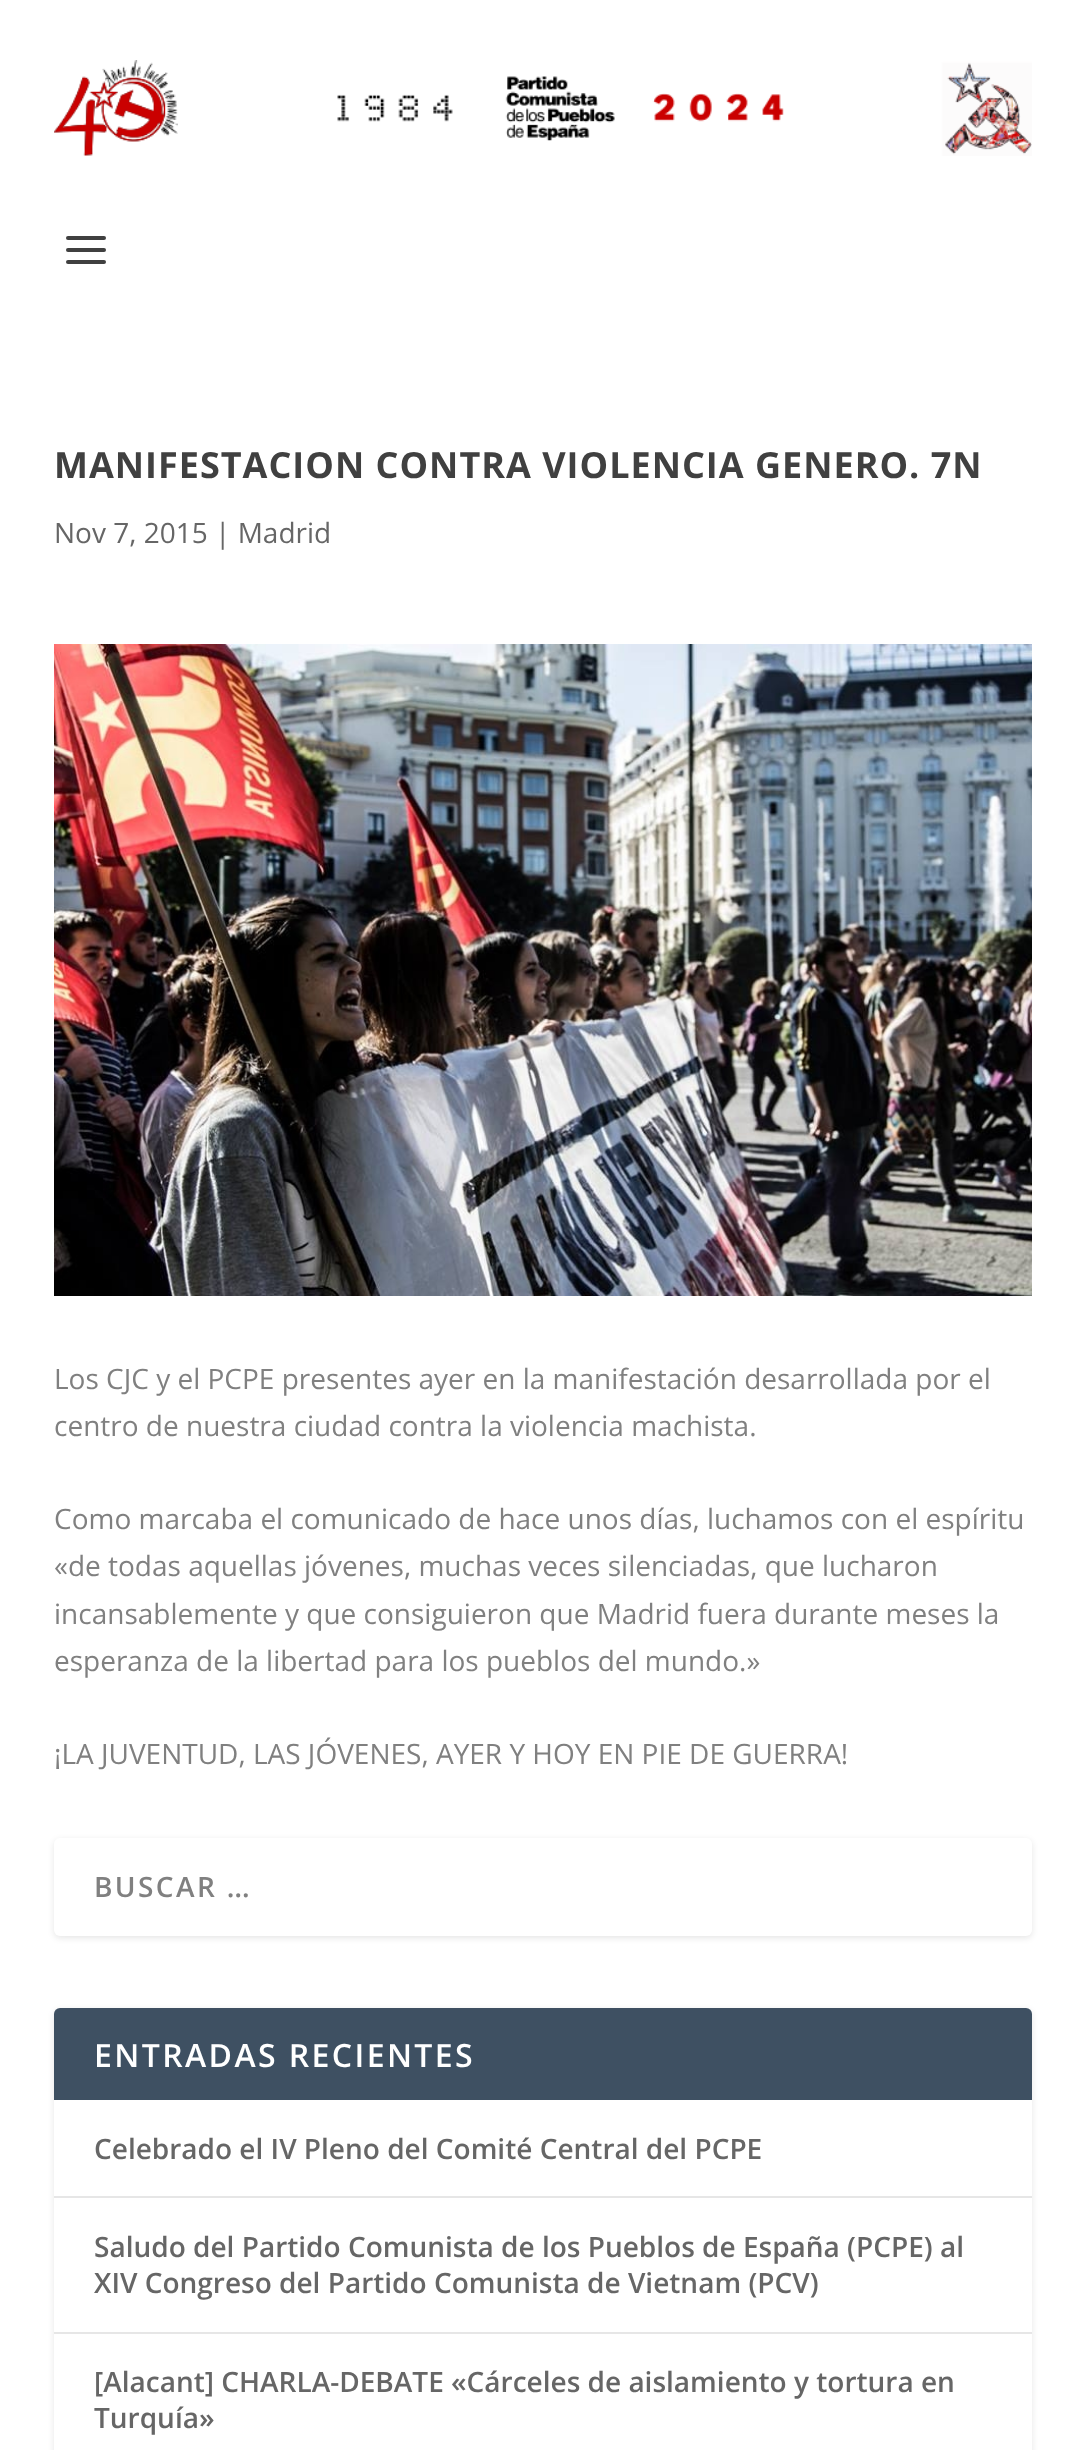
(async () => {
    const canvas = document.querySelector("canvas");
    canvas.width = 1085;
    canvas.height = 2450;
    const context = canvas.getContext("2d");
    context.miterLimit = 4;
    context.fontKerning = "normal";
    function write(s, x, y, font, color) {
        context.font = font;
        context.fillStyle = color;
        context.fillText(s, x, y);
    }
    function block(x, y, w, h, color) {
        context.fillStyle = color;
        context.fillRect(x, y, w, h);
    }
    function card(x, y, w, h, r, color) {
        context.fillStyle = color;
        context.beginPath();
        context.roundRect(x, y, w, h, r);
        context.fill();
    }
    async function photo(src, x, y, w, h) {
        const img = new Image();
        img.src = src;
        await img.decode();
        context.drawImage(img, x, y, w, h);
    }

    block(0, 0, 1085, 2450, "rgb(255, 255, 255)");
    await photo("media/1.png", 54, 60, 978, 96);
    card(66, 236, 40, 4, 2, "rgb(64, 64, 64)");
    card(66, 248, 40, 4, 2, "rgb(64, 64, 64)");
    card(66, 260, 40, 4, 2, "rgb(64, 64, 64)");
    context.letterSpacing = "1px";
    write("MANIFESTACION CONTRA VIOLENCIA GENERO. 7N", 54, 478, "bold 36px Open Sans", "rgb(64, 64, 64)");
    context.letterSpacing = "0px";
    write("Nov 7, 2015 | Madrid", 54, 543, "28px Open Sans", "rgb(102, 102, 102)");
    await photo("media/2.png", 54, 644, 978, 652);
    write("Los CJC y el PCPE presentes ayer en la manifestación desarrollada por el", 54, 1389, "28px Open Sans", "rgb(128, 128, 128)");
    write("centro de nuestra ciudad contra la violencia machista.", 54, 1436, "28px Open Sans", "rgb(128, 128, 128)");
    write("Como marcaba el comunicado de hace unos días, luchamos con el espíritu", 54, 1529, "28px Open Sans", "rgb(128, 128, 128)");
    write("«de todas aquellas jóvenes, muchas veces silenciadas, que lucharon", 54, 1576, "28px Open Sans", "rgb(128, 128, 128)");
    write("incansablemente y que consiguieron que Madrid fuera durante meses la", 54, 1624, "28px Open Sans", "rgb(128, 128, 128)");
    write("esperanza de la libertad para los pueblos del mundo.»", 54, 1671, "28px Open Sans", "rgb(128, 128, 128)");
    write("¡LA JUVENTUD, LAS JÓVENES, AYER Y HOY EN PIE DE GUERRA!", 54, 1764, "28px Open Sans", "rgb(128, 128, 128)");
    context.fillStyle = "rgba(0, 0, 0, 0.1)";
    context.filter = "blur(3px)";
    context.beginPath();
    context.roundRect(54, 1840, 978, 98, 6);
    context.fill();
    context.filter = "none";
    card(54, 1838, 978, 98, 6, "rgb(255, 255, 255)");
    context.letterSpacing = "2.4px";
    write("BUSCAR …", 94, 1897, "600 28px Open Sans", "rgb(128, 128, 128)");
    context.fillStyle = "rgba(0, 0, 0, 0.1)";
    context.filter = "blur(3px)";
    context.beginPath();
    context.roundRect(54, 2010, 978, 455, 6);
    context.fill();
    context.filter = "none";
    card(54, 2008, 978, 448, 6, "rgb(255, 255, 255)");
    context.fillStyle = "rgb(62, 80, 98)";
    context.beginPath();
    context.roundRect(54, 2008, 978, 92, [6, 6, 0, 0]);
    context.fill();
    write("ENTRADAS RECIENTES", 94, 2067, "600 32px Open Sans", "rgb(255, 255, 255)");
    block(54, 2196, 978, 2, "rgb(230, 230, 230)");
    context.letterSpacing = "0px";
    write("Celebrado el IV Pleno del Comité Central del PCPE", 94, 2159, "600 28px Open Sans", "rgb(102, 102, 102)");
    block(54, 2332, 978, 2, "rgb(230, 230, 230)");
    write("Saludo del Partido Comunista de los Pueblos de España (PCPE) al", 94, 2257, "600 28px Open Sans", "rgb(102, 102, 102)");
    write("XIV Congreso del Partido Comunista de Vietnam (PCV)", 94, 2293, "600 28px Open Sans", "rgb(102, 102, 102)");
    write("[Alacant] CHARLA-DEBATE «Cárceles de aislamiento y tortura en", 94, 2392, "600 28px Open Sans", "rgb(102, 102, 102)");
    write("Turquía»", 94, 2428, "600 28px Open Sans", "rgb(102, 102, 102)");
})();
